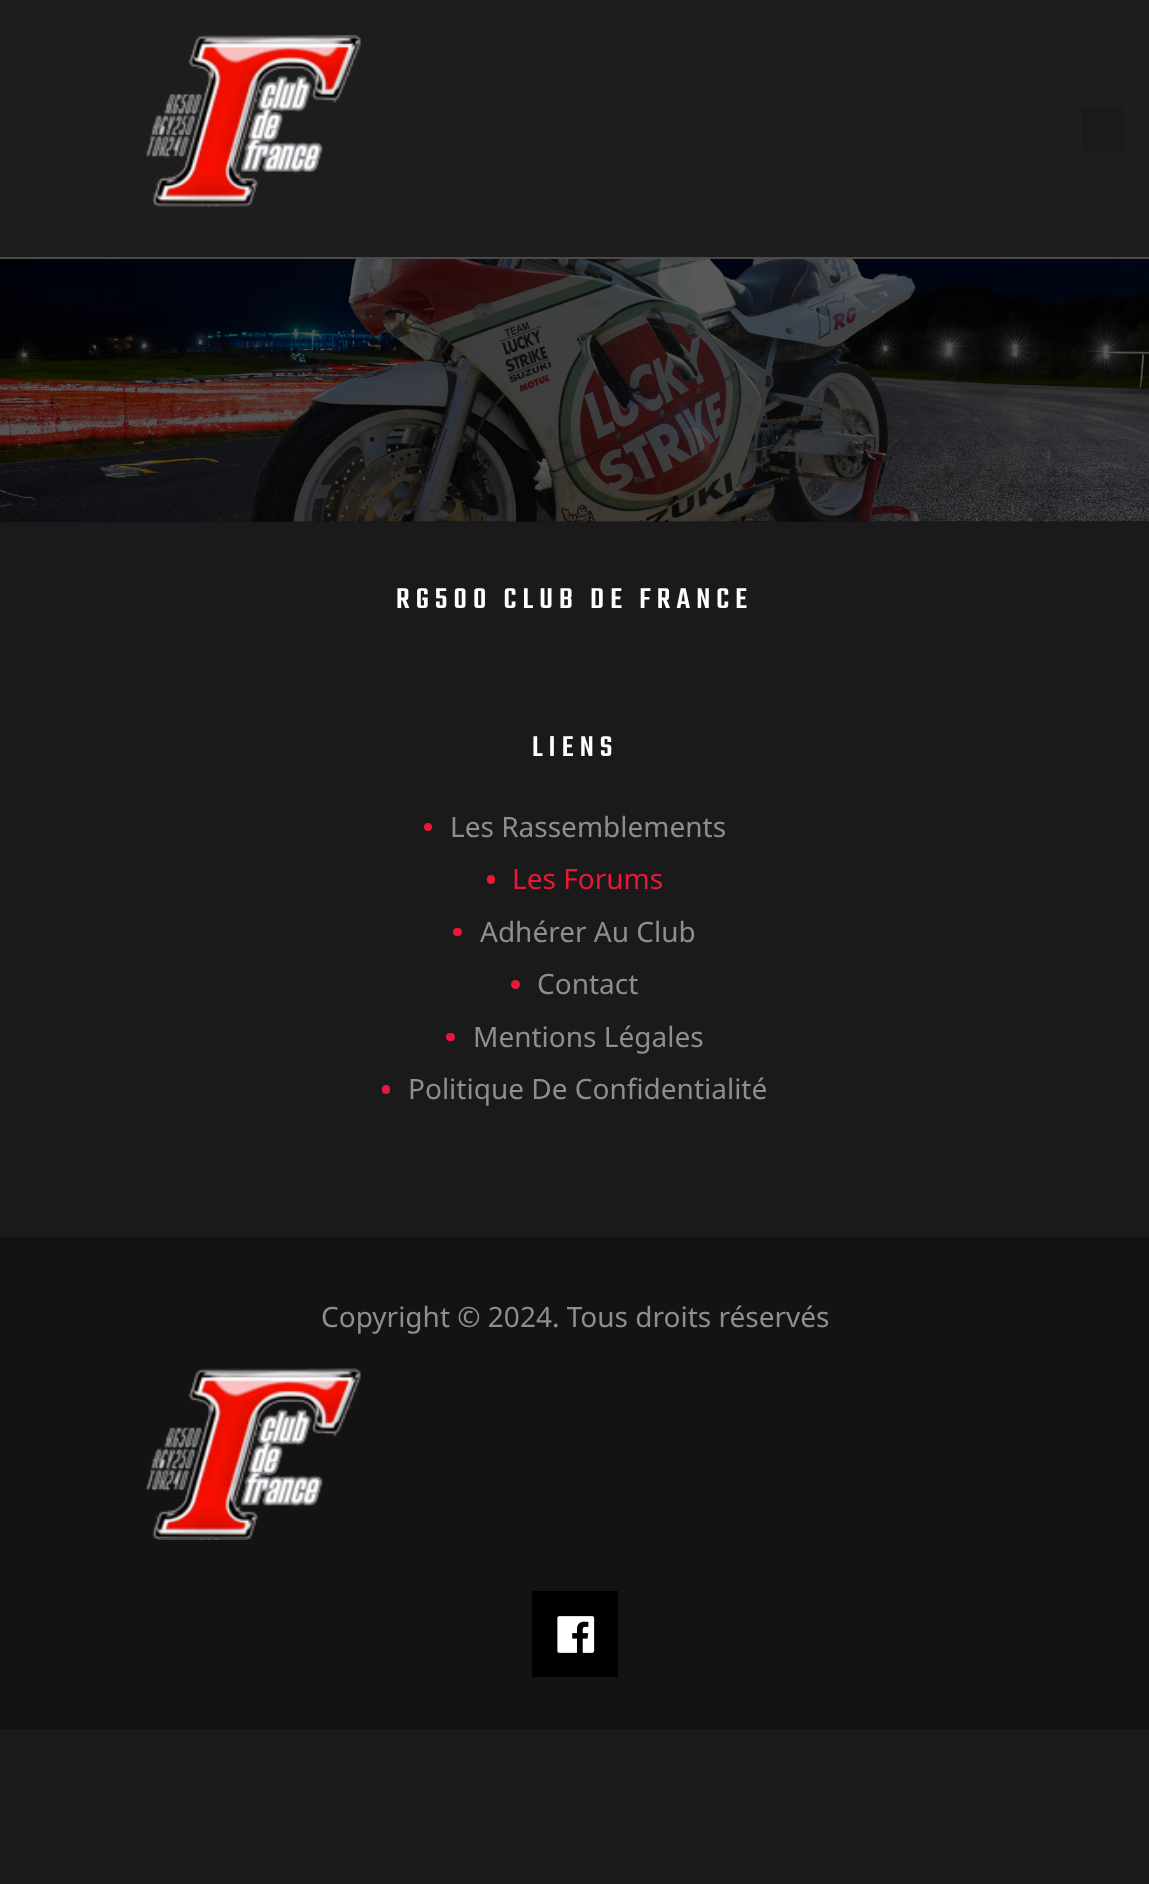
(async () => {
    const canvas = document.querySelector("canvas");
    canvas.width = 1149;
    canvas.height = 1884;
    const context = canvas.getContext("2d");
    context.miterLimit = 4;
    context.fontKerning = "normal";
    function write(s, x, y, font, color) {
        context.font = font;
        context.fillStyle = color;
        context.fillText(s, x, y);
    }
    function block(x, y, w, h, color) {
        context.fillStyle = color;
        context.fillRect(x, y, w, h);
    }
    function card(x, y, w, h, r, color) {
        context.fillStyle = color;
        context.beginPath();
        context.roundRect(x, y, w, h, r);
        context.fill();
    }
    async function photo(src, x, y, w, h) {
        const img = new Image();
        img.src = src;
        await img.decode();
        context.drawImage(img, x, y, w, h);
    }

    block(0, 0, 1149, 1884, "rgb(26, 26, 26)");
    block(0, 0, 1149, 257, "rgb(29, 29, 29)");
    block(0, 257, 1149, 2, "rgb(74, 74, 74)");
    await photo("media/1.png", 146, 35, 215, 172);
    card(1082, 107, 42, 44, 5, "rgb(26, 26, 26)");
    block(0, 521, 1149, 1, "rgb(19, 19, 19)");
    await photo("media/2.png", 0, 259, 1149, 263);
    block(0, 259, 1149, 263, "rgba(0, 0, 0, 0.2)");
    context.letterSpacing = "6.1px";
    write("RG500 CLUB DE FRANCE", 396, 608, "500 31.5px Teko", "rgb(255, 255, 255)");
    write("LIENS", 532, 756, "500 31.5px Teko", "rgb(255, 255, 255)");
    context.fillStyle = "rgb(232, 25, 56)";
    context.beginPath();
    context.arc(428, 827, 4, 0, Math.PI * 2);
    context.fill();
    context.letterSpacing = "0px";
    write("Les Rassemblements", 450, 837, "28px Noto Sans", "rgb(142, 142, 142)");
    card(487, 875, 8, 9, 4, "rgb(232, 25, 56)");
    write("Les Forums", 512, 889, "28px Noto Sans", "rgb(232, 25, 56)");
    card(453, 928, 9, 8, 4, "rgb(232, 25, 56)");
    write("Adhérer Au Club", 480, 942, "28px Noto Sans", "rgb(142, 142, 142)");
    context.fillStyle = "rgb(232, 25, 56)";
    context.beginPath();
    context.arc(515.5, 984.5, 4.5, 0, Math.PI * 2);
    context.fill();
    write("Contact", 537, 994, "28px Noto Sans", "rgb(142, 142, 142)");
    card(446, 1033, 9, 8, 4, "rgb(232, 25, 56)");
    write("Mentions Légales", 473, 1047, "28px Noto Sans", "rgb(142, 142, 142)");
    card(382, 1085, 8, 9, 4, "rgb(232, 25, 56)");
    write("Politique De Confidentialité", 408, 1099, "28px Noto Sans", "rgb(142, 142, 142)");
    block(0, 1237, 1149, 492, "rgb(19, 19, 19)");
    write("Copyright © 2024. Tous droits réservés", 321, 1327, "28px Noto Sans", "rgb(142, 142, 142)");
    await photo("media/3.png", 146, 1368, 215, 172);
    block(532, 1591, 86, 86, "rgb(0, 0, 0)");
    await photo("media/4.png", 557, 1616, 38, 37);
})();
